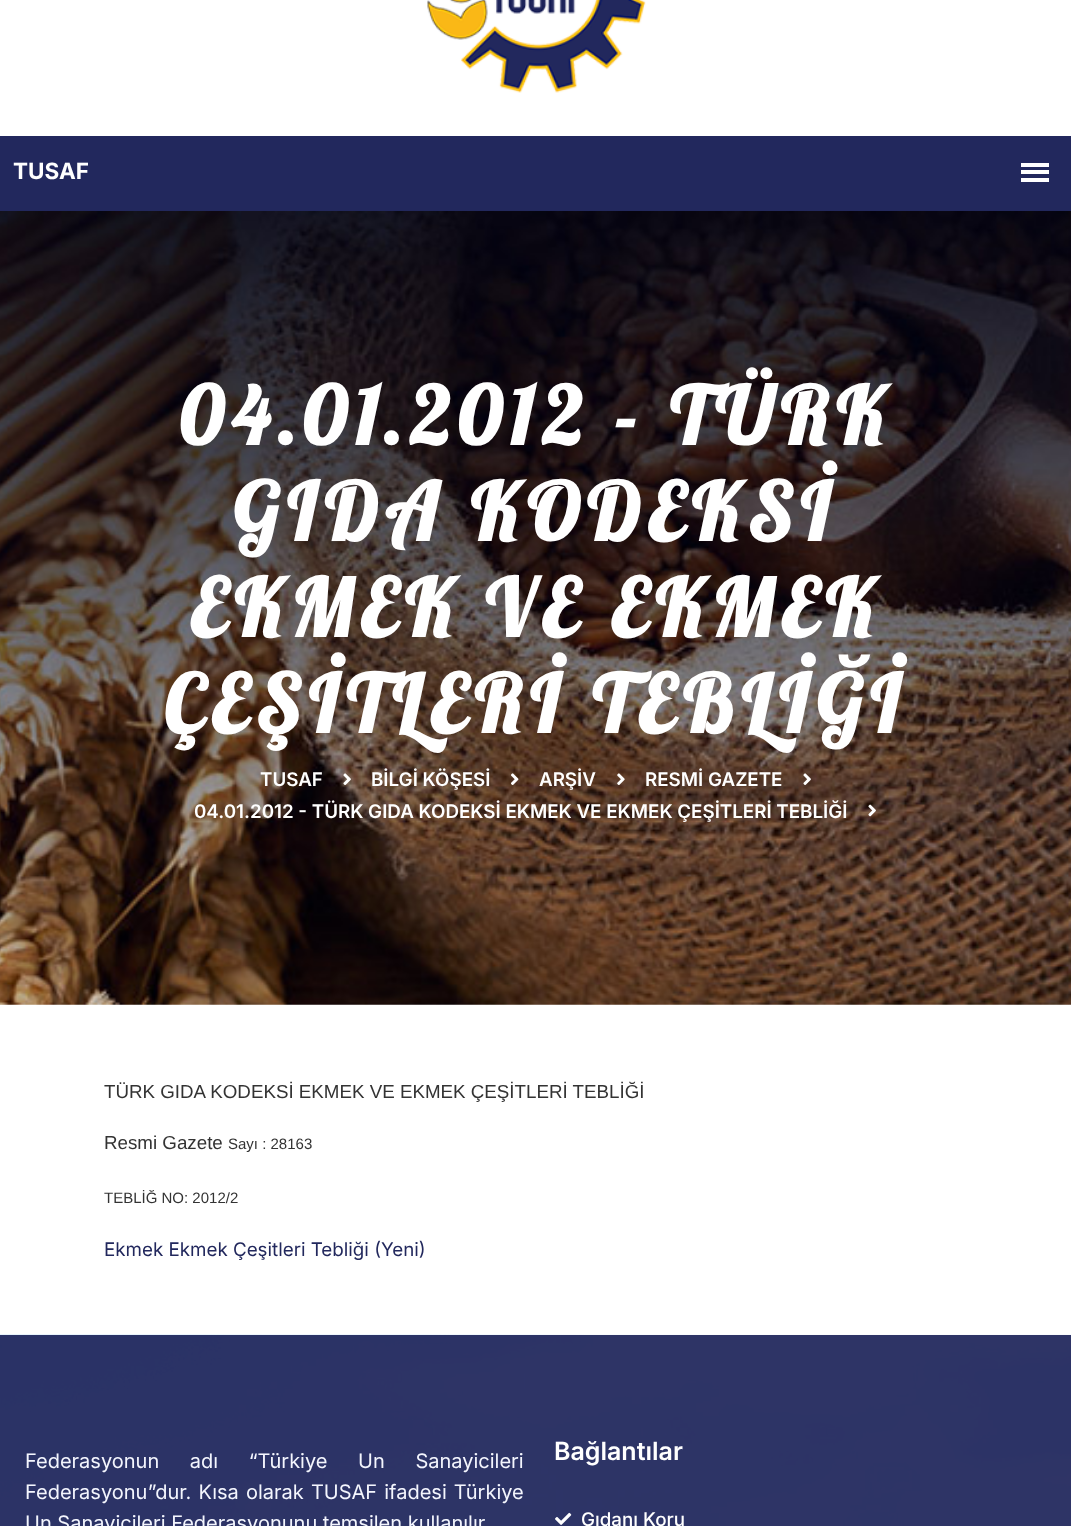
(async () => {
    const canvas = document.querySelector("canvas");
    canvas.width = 1071;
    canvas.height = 1526;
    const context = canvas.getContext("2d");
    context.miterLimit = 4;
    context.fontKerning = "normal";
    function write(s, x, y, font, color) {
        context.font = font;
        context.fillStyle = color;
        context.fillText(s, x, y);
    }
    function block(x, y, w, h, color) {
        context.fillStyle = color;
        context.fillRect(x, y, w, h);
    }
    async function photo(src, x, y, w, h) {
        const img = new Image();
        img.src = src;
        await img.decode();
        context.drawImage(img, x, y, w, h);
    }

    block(0, 0, 1071, 1526, "rgb(255, 255, 255)");
    await photo("media/1.png", 427, 0, 219, 93);
    block(0, 136, 1071, 75, "rgb(34, 40, 93)");
    write("TUSAF", 13, 179, "bold 22.5px Inter", "rgb(255, 255, 255)");
    block(1021, 163, 28, 4, "rgb(255, 255, 255)");
    block(1021, 170, 28, 4, "rgb(255, 255, 255)");
    block(1021, 178, 28, 4, "rgb(255, 255, 255)");
    await photo("media/2.png", 0, 211, 1071, 794);
    context.letterSpacing = "7.5px";
    write("04.01.2012 - TÜRK", 179, 445, "bold 80px Lobster", "rgb(255, 255, 255)");
    write("GIDA KODEKSİ", 233, 541, "bold 80px Lobster", "rgb(255, 255, 255)");
    write("EKMEK VE EKMEK", 190, 637, "bold 80px Lobster", "rgb(255, 255, 255)");
    write("ÇEŞİTLERİ TEBLİĞİ", 164, 733, "bold 80px Lobster", "rgb(255, 255, 255)");
    context.letterSpacing = "0px";
    write("TUSAF", 260, 786, "600 18.75px Inter", "rgb(255, 255, 255)");
    await photo("media/3.png", 343, 773, 8, 12);
    write("BİLGİ KÖŞESİ", 371, 786, "600 18.75px Inter", "rgb(255, 255, 255)");
    await photo("media/4.png", 511, 773, 8, 12);
    write("ARŞİV", 539, 786, "600 18.75px Inter", "rgb(255, 255, 255)");
    await photo("media/5.png", 617, 773, 8, 12);
    write("RESMİ GAZETE", 645, 786, "600 18.75px Inter", "rgb(255, 255, 255)");
    await photo("media/6.png", 803, 773, 8, 12);
    write("04.01.2012 - TÜRK GIDA KODEKSİ EKMEK VE EKMEK ÇEŞİTLERİ TEBLİĞİ", 194, 818, "600 18.75px Inter", "rgb(255, 255, 255)");
    await photo("media/7.png", 868, 804, 8, 13);
    write("TÜRK GIDA KODEKSİ EKMEK VE EKMEK ÇEŞİTLERİ TEBLİĞİ", 104, 1098, "18.75px Liberation Sans", "rgb(51, 51, 51)");
    write("Resmi Gazete", 104, 1149, "18.75px Liberation Sans", "rgb(51, 51, 51)");
    write("Sayı : 28163", 228, 1149, "15px Liberation Sans", "rgb(51, 51, 51)");
    write("TEBLİĞ NO: 2012/2", 104, 1203, "15px Liberation Sans", "rgb(51, 51, 51)");
    write("Ekmek Ekmek Çeşitleri Tebliği (Yeni)", 104, 1256, "18.75px Inter", "rgb(34, 40, 93)");
    await photo("media/8.png", 0, 1334, 1071, 192);
    context.wordSpacing = "25px";
    write("Federasyonun adı “Türkiye Un Sanayicileri", 25, 1468, "20px Inter", "rgb(244, 246, 254)");
    context.wordSpacing = "1.5px";
    write("Federasyonu”dur. Kısa olarak TUSAF ifadesi Türkiye", 25, 1499, "20px Inter", "rgb(244, 246, 254)");
    context.wordSpacing = "0px";
    write("Un Sanayicileri Federasyonunu temsilen kullanılır.", 25, 1530, "20px Inter", "rgb(244, 246, 254)");
    write("Bağlantılar", 554, 1460, "600 25px Inter", "rgb(255, 255, 255)");
    await photo("media/9.png", 555, 1512, 17, 13);
    write("Gıdanı Koru", 581, 1526, "500 18.75px Inter", "rgb(255, 255, 255)");
})();
